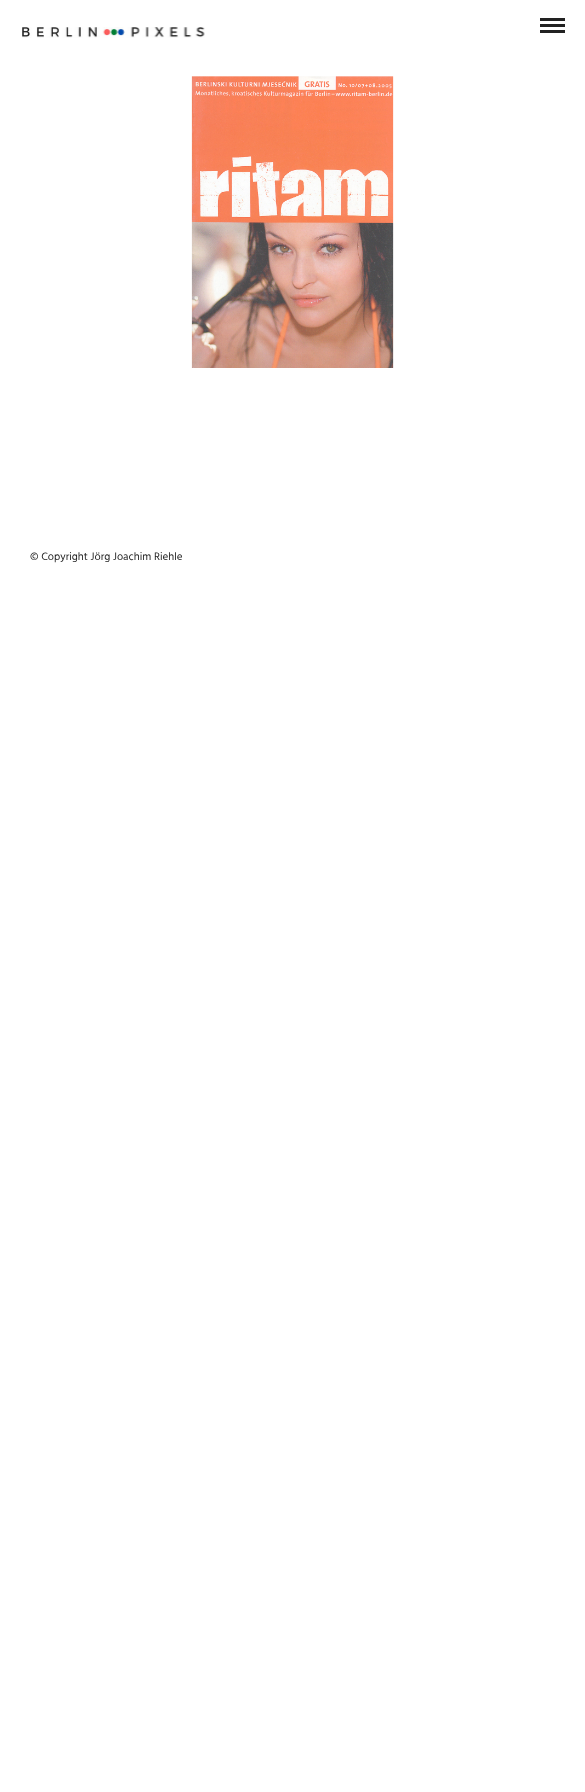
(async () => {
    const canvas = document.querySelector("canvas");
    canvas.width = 585;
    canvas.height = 1792;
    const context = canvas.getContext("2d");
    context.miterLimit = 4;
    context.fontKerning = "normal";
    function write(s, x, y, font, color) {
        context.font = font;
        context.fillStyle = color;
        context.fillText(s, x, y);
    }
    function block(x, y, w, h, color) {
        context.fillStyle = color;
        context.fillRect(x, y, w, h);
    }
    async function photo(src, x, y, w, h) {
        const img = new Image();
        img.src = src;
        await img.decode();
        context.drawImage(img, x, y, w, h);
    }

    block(0, 0, 585, 1792, "rgb(255, 255, 255)");
    await photo("media/1.png", 22, 27, 183, 11);
    block(540, 18, 25, 3, "rgb(34, 34, 34)");
    block(540, 24, 25, 3, "rgb(34, 34, 34)");
    block(540, 30, 25, 3, "rgb(34, 34, 34)");
    await photo("media/2.png", 191, 76, 203, 292);
    write("© Copyright Jörg Joachim Riehle", 30, 560, "11px Hind", "rgb(34, 34, 34)");
})();
